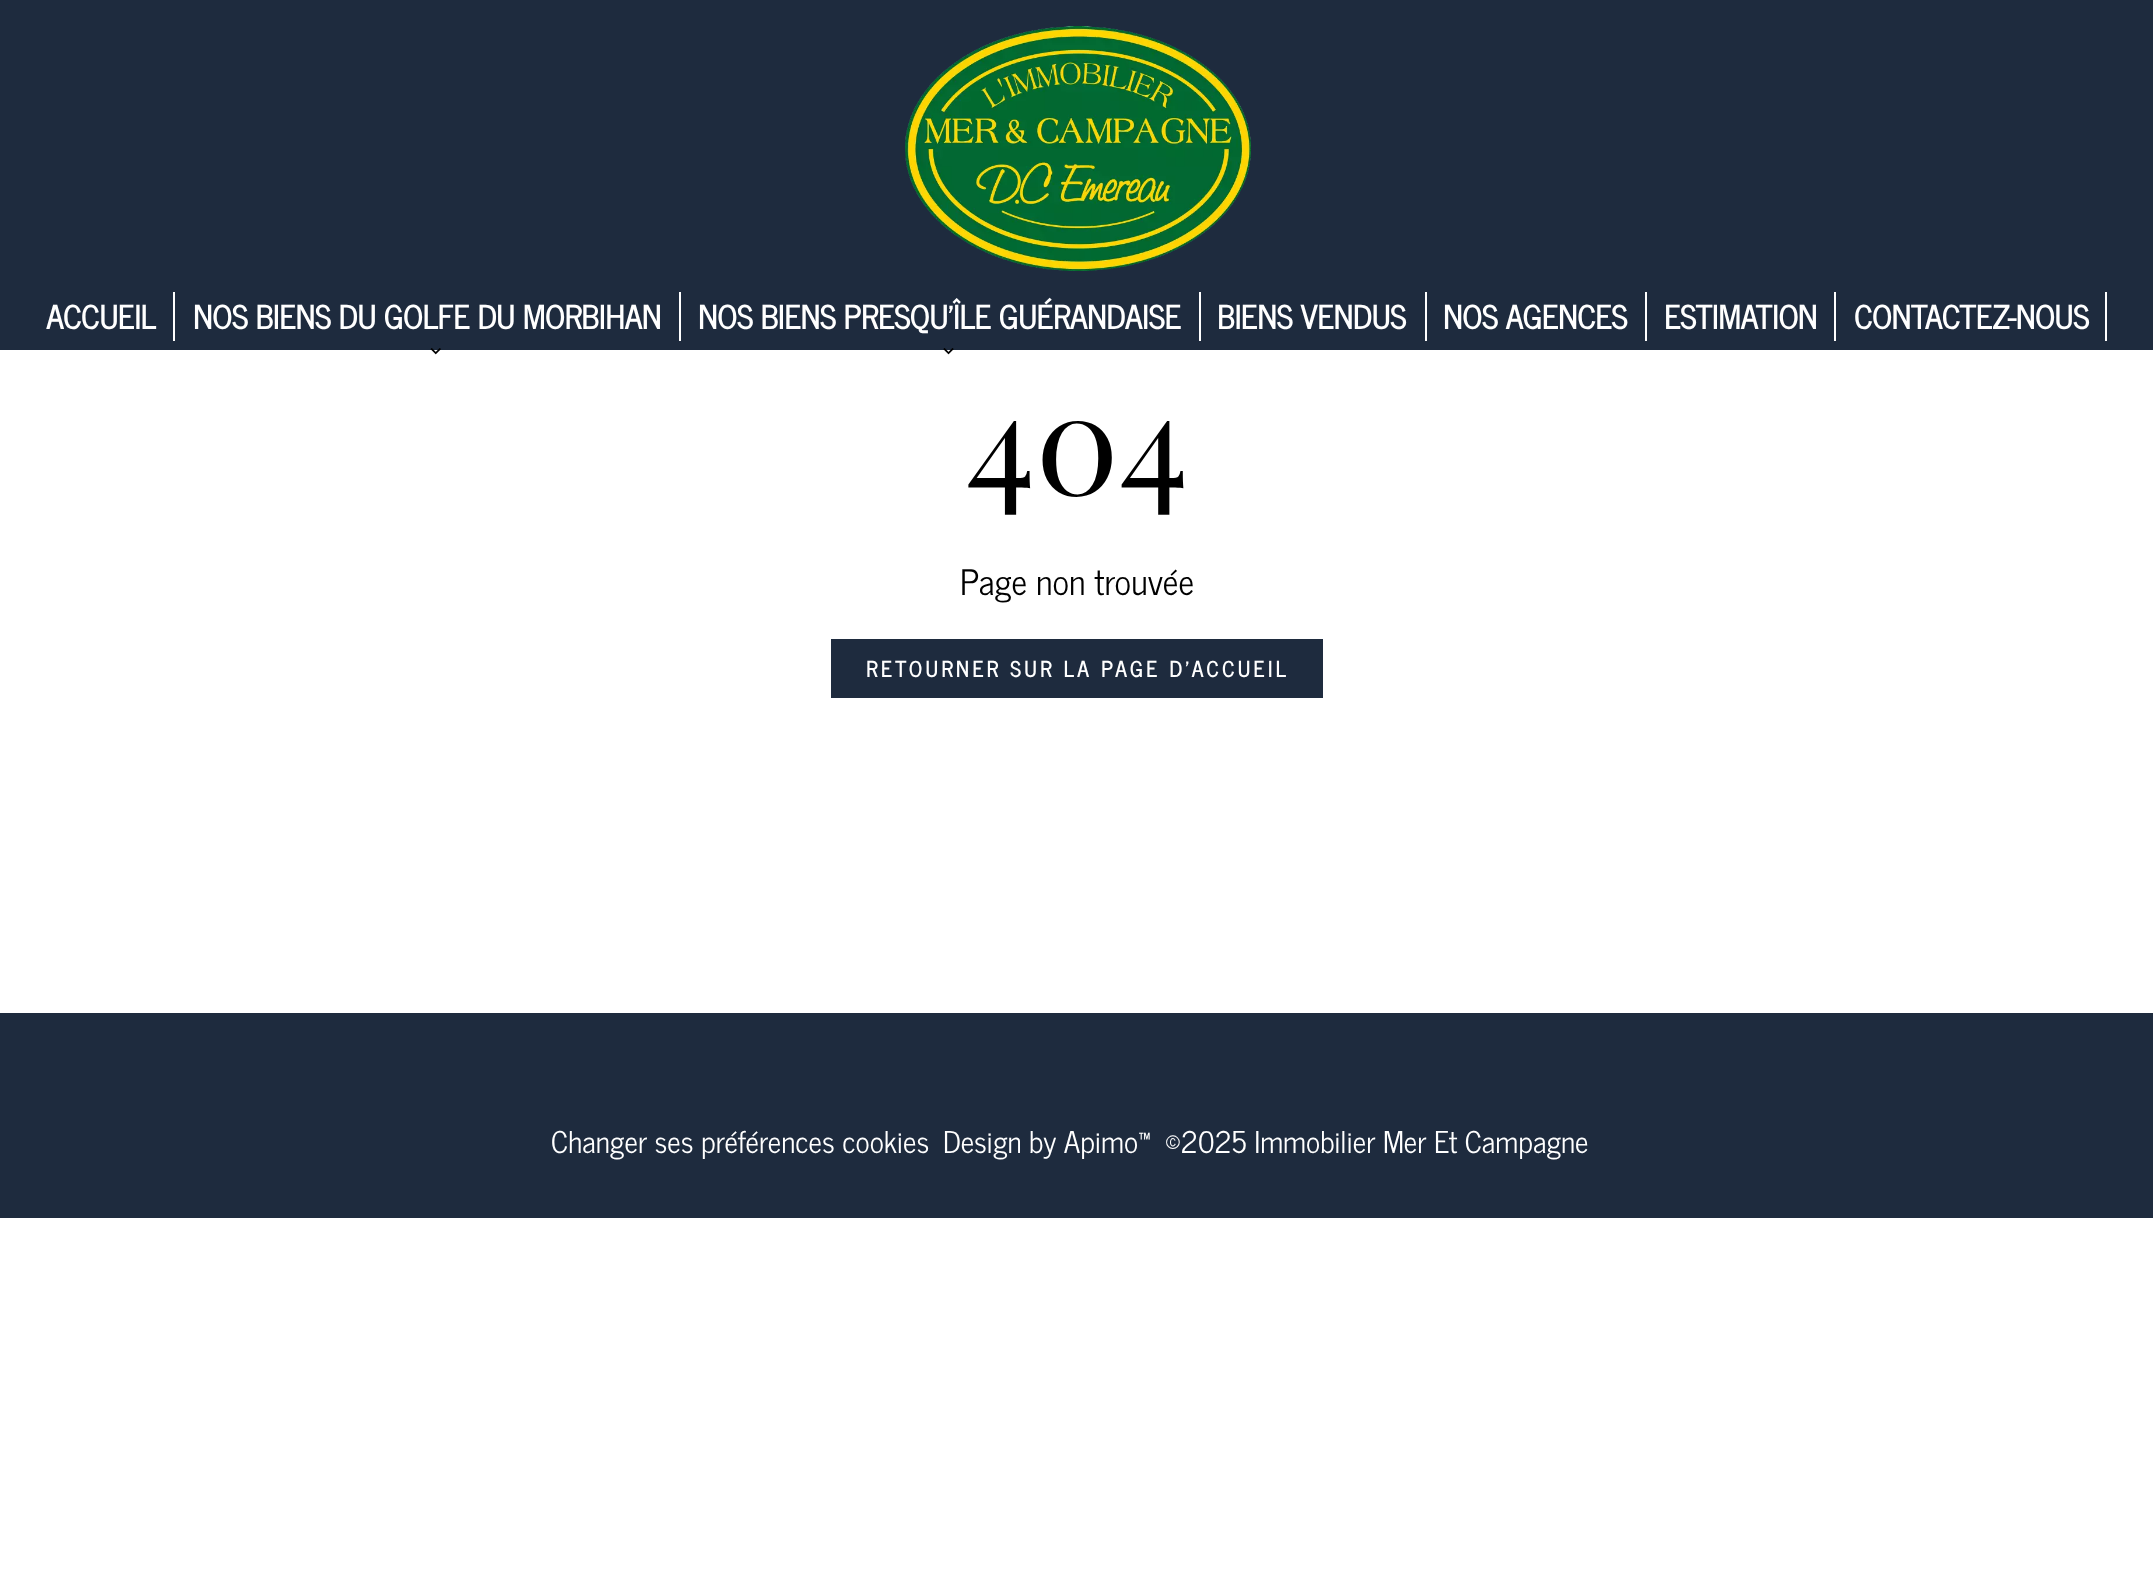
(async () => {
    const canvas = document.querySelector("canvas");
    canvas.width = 2153;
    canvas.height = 1578;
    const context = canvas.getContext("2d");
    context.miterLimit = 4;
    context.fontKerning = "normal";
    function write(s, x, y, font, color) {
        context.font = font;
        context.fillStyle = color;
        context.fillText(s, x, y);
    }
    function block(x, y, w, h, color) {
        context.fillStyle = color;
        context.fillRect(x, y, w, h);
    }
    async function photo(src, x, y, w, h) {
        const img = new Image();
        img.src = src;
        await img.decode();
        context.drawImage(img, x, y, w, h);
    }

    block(0, 0, 2153, 1578, "rgb(255, 255, 255)");
    block(0, 0, 2153, 350, "rgb(30, 43, 62)");
    await photo("media/1.png", 905, 26, 346, 245);
    block(173, 292, 2, 49, "rgb(255, 255, 255)");
    write("ACCUEIL", 46, 329, "bold 31.5px News Cycle", "rgb(255, 255, 255)");
    block(679, 292, 2, 49, "rgb(255, 255, 255)");
    write("NOS BIENS DU GOLFE DU MORBIHAN", 193, 329, "bold 31.5px News Cycle", "rgb(255, 255, 255)");
    await photo("media/2.png", 430, 348, 11, 7);
    block(1199, 292, 2, 49, "rgb(255, 255, 255)");
    write("NOS BIENS PRESQU’ÎLE GUÉRANDAISE", 698, 329, "bold 31.5px News Cycle", "rgb(255, 255, 255)");
    await photo("media/3.png", 943, 348, 11, 7);
    block(1425, 292, 2, 49, "rgb(255, 255, 255)");
    write("BIENS VENDUS", 1217, 329, "bold 31.5px News Cycle", "rgb(255, 255, 255)");
    block(1645, 292, 2, 49, "rgb(255, 255, 255)");
    write("NOS AGENCES", 1443, 329, "bold 31.5px News Cycle", "rgb(255, 255, 255)");
    block(1834, 292, 2, 49, "rgb(255, 255, 255)");
    write("ESTIMATION", 1664, 329, "bold 31.5px News Cycle", "rgb(255, 255, 255)");
    block(2105, 292, 2, 49, "rgb(255, 255, 255)");
    write("CONTACTEZ-NOUS", 1854, 329, "bold 31.5px News Cycle", "rgb(255, 255, 255)");
    write("404", 966, 495, "140px Playfair Display", "rgb(0, 0, 0)");
    write("Page non trouvée", 960, 595, "34.75px News Cycle", "rgb(0, 0, 0)");
    block(831, 639, 492, 59, "rgb(30, 43, 62)");
    context.letterSpacing = "3.5px";
    write("RETOURNER SUR LA PAGE D'ACCUEIL", 866, 677, "bold 21px News Cycle", "rgb(255, 255, 255)");
    block(0, 1013, 2153, 205, "rgb(30, 43, 62)");
    context.letterSpacing = "0px";
    write("Changer ses préférences cookies", 551, 1153, "29.75px News Cycle", "rgb(255, 255, 255)");
    write("Design by Apimo™", 943, 1153, "29.75px News Cycle", "rgb(255, 255, 255)");
    write("©2025 Immobilier Mer Et Campagne", 1165, 1153, "29.75px News Cycle", "rgb(255, 255, 255)");
})();
